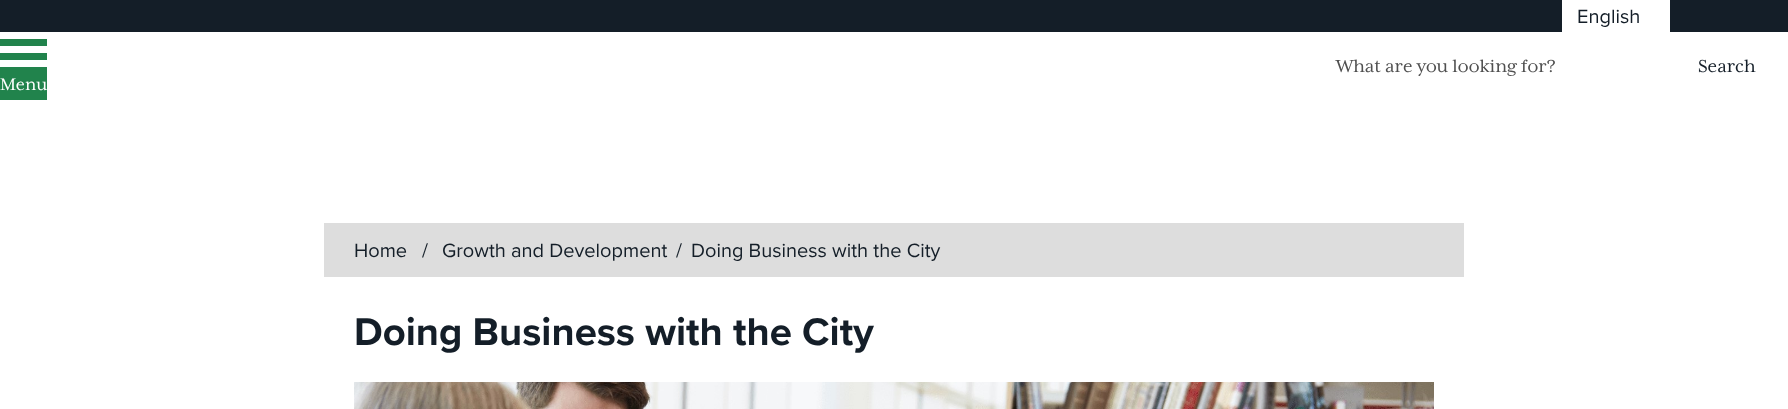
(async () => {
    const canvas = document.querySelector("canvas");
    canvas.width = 1788;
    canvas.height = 409;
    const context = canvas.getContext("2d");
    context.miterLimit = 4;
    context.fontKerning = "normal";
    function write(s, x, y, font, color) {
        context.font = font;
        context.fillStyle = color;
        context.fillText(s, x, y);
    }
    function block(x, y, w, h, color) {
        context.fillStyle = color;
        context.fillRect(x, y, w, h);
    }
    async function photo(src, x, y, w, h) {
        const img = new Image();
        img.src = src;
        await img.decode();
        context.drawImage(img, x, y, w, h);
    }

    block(0, 0, 1788, 409, "rgb(255, 255, 255)");
    block(0, 0, 1788, 32, "rgb(20, 30, 40)");
    block(1562, 0, 108, 32, "rgb(255, 255, 255)");
    write("English", 1577, 23, "20px Proxima Nova", "rgb(20, 30, 40)");
    write("What are you looking for?", 1336, 72, "20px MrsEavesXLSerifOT", "rgb(80, 80, 80)");
    write("Search", 1698, 72, "20px MrsEavesXLSerifOT", "rgb(20, 30, 40)");
    block(0, 39, 47, 61, "rgb(33, 131, 76)");
    block(0, 46, 54, 7, "rgb(255, 255, 255)");
    block(0, 60, 54, 7, "rgb(255, 255, 255)");
    write("Menu", 0, 90, "19px MrsEavesXLSerifOT", "rgb(255, 255, 255)");
    block(324, 223, 1140, 54, "rgb(221, 221, 221)");
    write("Home", 354, 257, "20px Proxima Nova", "rgb(20, 30, 40)");
    write("/", 422, 257, "20px Proxima Nova", "rgb(20, 30, 40)");
    write("Growth and Development", 442, 257, "20px Proxima Nova", "rgb(20, 30, 40)");
    write("/", 676, 257, "20px Proxima Nova", "rgb(20, 30, 40)");
    write("Doing Business with the City", 691, 257, "20px Proxima Nova", "rgb(20, 30, 40)");
    write("Doing Business with the City", 354, 345, "bold 40px Proxima Nova", "rgb(20, 30, 40)");
    await photo("media/1.png", 354, 382, 1080, 27);
})();
